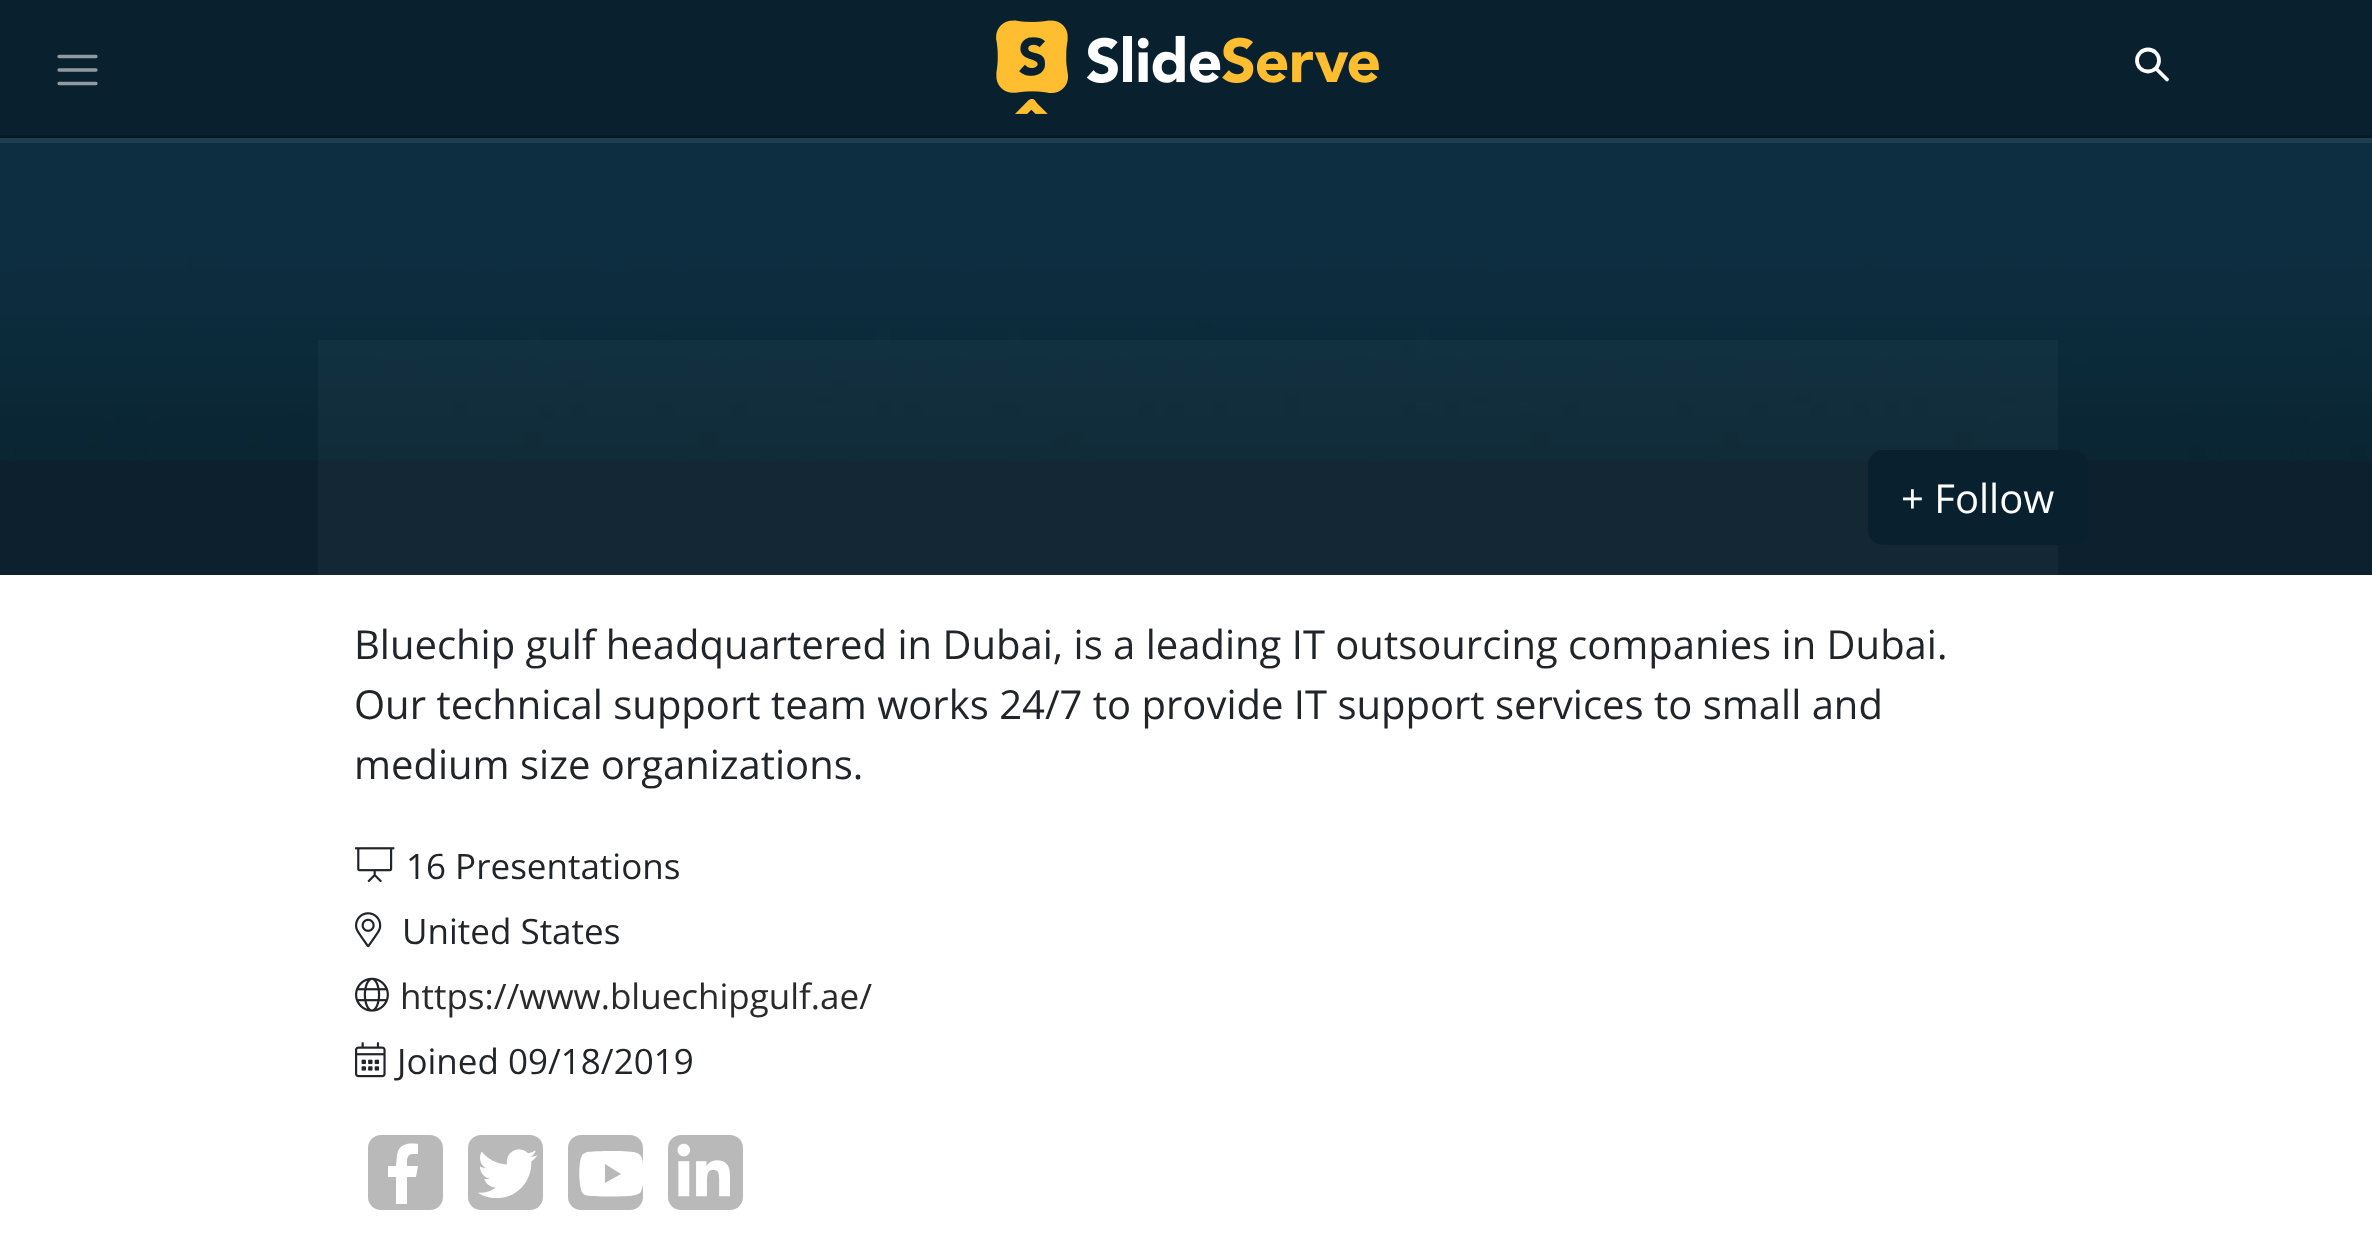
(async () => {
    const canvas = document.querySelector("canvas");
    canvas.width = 2372;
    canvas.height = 1257;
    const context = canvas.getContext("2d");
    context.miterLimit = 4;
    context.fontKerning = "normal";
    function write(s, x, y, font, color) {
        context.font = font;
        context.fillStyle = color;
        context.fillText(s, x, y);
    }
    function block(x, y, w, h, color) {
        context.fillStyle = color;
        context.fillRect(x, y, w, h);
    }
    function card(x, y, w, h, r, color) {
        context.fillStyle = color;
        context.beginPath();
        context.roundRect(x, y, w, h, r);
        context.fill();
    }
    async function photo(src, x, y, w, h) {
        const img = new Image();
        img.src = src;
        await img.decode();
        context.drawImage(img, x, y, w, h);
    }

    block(0, 0, 2372, 1257, "rgb(255, 255, 255)");
    context.fillStyle = "rgb(30, 61, 78)";
    context.beginPath();
    context.moveTo(0, 138);
    context.lineTo(0, 143);
    context.lineTo(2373, 143);
    context.lineTo(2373, 5);
    context.lineTo(2372, 5);
    context.lineTo(2372, 138);
    context.closePath();
    context.fill();
    block(0, 0, 2372, 135, "rgb(9, 33, 46)");
    block(0, 135, 2372, 3, "rgb(6, 25, 36)");
    context.beginPath();
    context.moveTo(59, 56.5);
    context.lineTo(96, 56.5);
    context.moveTo(59, 70);
    context.lineTo(96, 70);
    context.moveTo(59, 83.5);
    context.lineTo(96, 83.5);
    context.strokeStyle = "rgb(144, 155, 161)";
    context.lineWidth = 3.3;
    context.lineCap = "round";
    context.stroke();
    await photo("media/1.png", 996, 20, 383, 94);
    context.beginPath();
    context.arc(2148, 60.5, 11, 0, Math.PI * 2);
    context.strokeStyle = "rgb(255, 255, 255)";
    context.lineWidth = 3.8;
    context.stroke();
    context.beginPath();
    context.moveTo(2167, 79.5);
    context.lineTo(2157, 69.5);
    context.lineJoin = "round";
    context.stroke();
    block(0, 461, 2372, 114, "rgb(12, 32, 46)");
    await photo("media/2.png", 0, 143, 2372, 318);
    block(318, 340, 1740, 235, "rgba(255, 255, 255, 0.03)");
    context.fillStyle = "rgb(9, 33, 46)";
    context.beginPath();
    context.roundRect(1869.5, 451.5, 217, 92, 13.5);
    context.fill();
    context.strokeStyle = "rgb(9, 33, 46)";
    context.lineWidth = 3;
    context.lineJoin = "miter";
    context.stroke();
    write("+ Follow", 1901, 513, "40px Open Sans", "rgb(255, 255, 255)");
    write("Bluechip gulf headquartered in Dubai, is a leading IT outsourcing companies in Dubai.", 354, 659, "40px Open Sans", "rgb(33, 37, 41)");
    write("Our technical support team works 24/7 to provide IT support services to small and", 354, 719, "40px Open Sans", "rgb(33, 37, 41)");
    write("medium size organizations.", 354, 779, "40px Open Sans", "rgb(33, 37, 41)");
    await photo("media/3.png", 355, 847, 40, 36);
    write("16 Presentations", 406, 879, "35px Open Sans", "rgb(33, 37, 41)");
    await photo("media/4.png", 355, 912, 27, 36);
    write("United States", 402, 944, "35px Open Sans", "rgb(33, 37, 41)");
    await photo("media/5.png", 355, 977, 34, 35);
    write("https://www.bluechipgulf.ae/", 400, 1009, "35px Open Sans", "rgb(43, 42, 42)");
    await photo("media/6.png", 355, 1042, 31, 36);
    write("Joined 09/18/2019", 397, 1074, "35px Open Sans", "rgb(33, 37, 41)");
    card(368, 1135, 75, 75, 13, "rgb(185, 185, 185)");
    context.fillStyle = "rgb(255, 255, 255)";
    context.beginPath();
    context.moveTo(413, 1154);
    context.lineTo(418, 1154);
    context.lineTo(418, 1144);
    context.bezierCurveTo(409, 1143, 399, 1143, 397, 1155);
    context.lineTo(396, 1166);
    context.lineTo(388, 1166);
    context.lineTo(388, 1177);
    context.lineTo(396, 1177);
    context.lineTo(396, 1204);
    context.lineTo(407, 1204);
    context.lineTo(407, 1177);
    context.lineTo(416, 1177);
    context.lineTo(418, 1166);
    context.lineTo(407, 1166);
    context.bezierCurveTo(407, 1161, 406, 1154, 413, 1154);
    context.closePath();
    context.fill();
    card(468, 1135, 75, 75, 13, "rgb(185, 185, 185)");
    await photo("media/7.png", 477, 1149, 61, 50);
    card(568, 1135, 75, 75, 13, "rgb(185, 185, 185)");
    context.fillStyle = "rgb(255, 255, 255)";
    context.beginPath();
    context.moveTo(642, 1158);
    context.bezierCurveTo(641, 1156, 640, 1154, 637, 1153);
    context.bezierCurveTo(631, 1150, 594, 1151, 587, 1152);
    context.lineTo(583, 1154);
    context.bezierCurveTo(578, 1159, 579, 1183, 581, 1189);
    context.bezierCurveTo(581, 1192, 583, 1194, 585, 1195);
    context.bezierCurveTo(592, 1197, 628, 1197, 636, 1195);
    context.lineTo(640, 1193);
    context.bezierCurveTo(645, 1188, 644, 1165, 642, 1158);
    context.closePath();
    context.moveTo(605, 1183);
    context.lineTo(605, 1164);
    context.lineTo(621, 1174);
    context.closePath();
    context.fill();
    card(668, 1135, 75, 75, 13, "rgb(185, 185, 185)");
    await photo("media/8.png", 677, 1143, 53, 54);
})();
